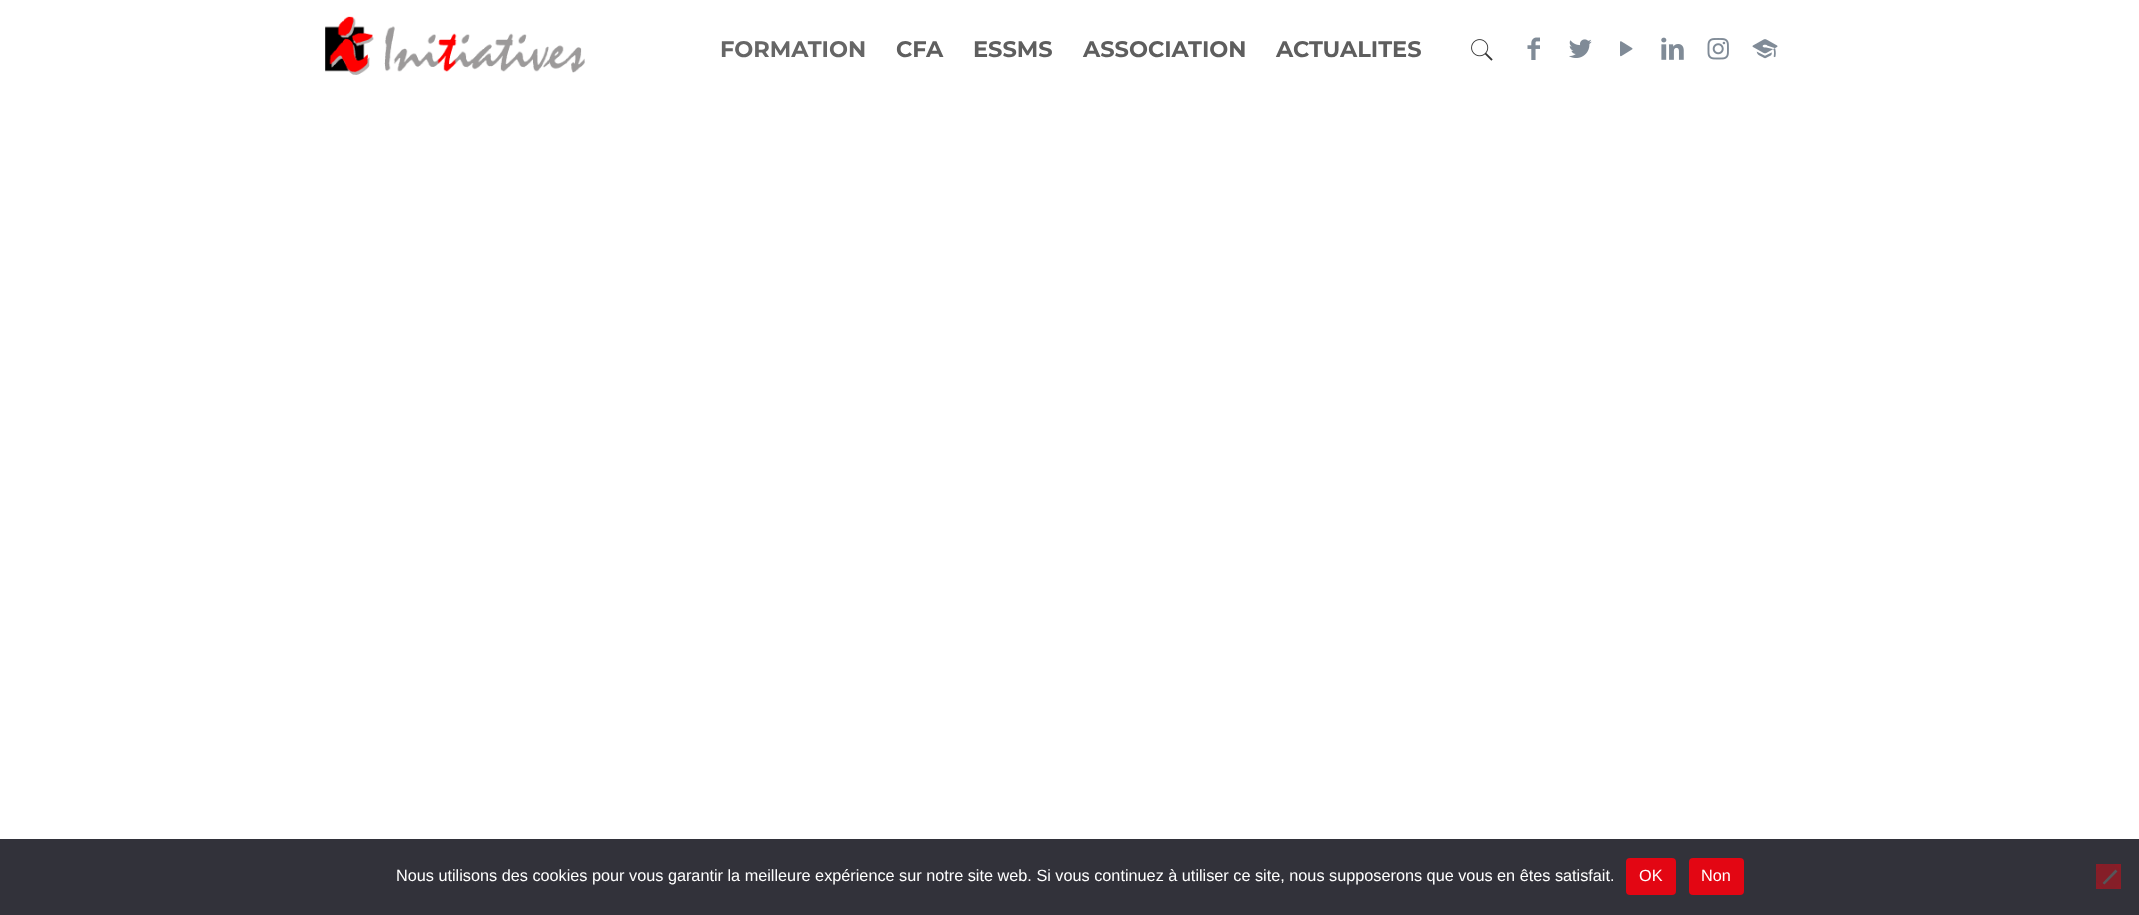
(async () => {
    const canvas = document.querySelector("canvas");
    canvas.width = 2139;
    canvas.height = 915;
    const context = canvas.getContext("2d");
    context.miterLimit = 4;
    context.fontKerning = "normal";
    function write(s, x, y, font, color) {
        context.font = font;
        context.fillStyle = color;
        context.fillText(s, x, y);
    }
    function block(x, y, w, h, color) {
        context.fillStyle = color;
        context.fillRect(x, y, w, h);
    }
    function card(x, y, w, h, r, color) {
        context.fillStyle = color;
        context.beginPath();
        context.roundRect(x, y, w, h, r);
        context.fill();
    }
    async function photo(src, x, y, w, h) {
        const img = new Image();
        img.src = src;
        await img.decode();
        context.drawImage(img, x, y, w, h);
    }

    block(0, 0, 2139, 915, "rgb(255, 255, 255)");
    await photo("media/1.png", 325, 16, 260, 59);
    write("FORMATION", 720, 57, "bold 22.5px Montserrat", "rgb(102, 102, 102)");
    write("CFA", 896, 57, "bold 22.5px Montserrat", "rgb(94, 94, 94)");
    write("ESSMS", 973, 57, "bold 22.5px Montserrat", "rgb(94, 94, 94)");
    write("ASSOCIATION", 1083, 57, "bold 22.5px Montserrat", "rgb(94, 94, 94)");
    write("ACTUALITES", 1276, 57, "bold 22.5px Montserrat", "rgb(94, 94, 94)");
    await photo("media/2.png", 1471, 39, 22, 22);
    await photo("media/3.png", 1527, 37, 13, 23);
    await photo("media/4.png", 1569, 39, 23, 19);
    await photo("media/5.png", 1620, 41, 13, 16);
    await photo("media/6.png", 1661, 37, 23, 23);
    await photo("media/7.png", 1707, 38, 22, 22);
    await photo("media/8.png", 1752, 39, 26, 20);
    block(0, 839, 2139, 76, "rgb(50, 50, 58)");
    write("Nous utilisons des cookies pour vous garantir la meilleure expérience sur notre site web. Si vous continuez à utiliser ce site, nous supposerons que vous en êtes satisfait.", 396, 881, "16.25px Liberation Sans", "rgb(255, 255, 255)");
    card(1626, 858, 50, 37, 4, "rgb(227, 6, 19)");
    write("OK", 1639, 881, "16.25px Liberation Sans", "rgb(255, 255, 255)");
    card(1689, 858, 55, 37, 4, "rgb(227, 6, 19)");
    write("Non", 1701, 881, "16.25px Liberation Sans", "rgb(255, 255, 255)");
    block(2096, 864, 25, 25, "rgb(139, 28, 39)");
    context.fillStyle = "rgb(89, 89, 93)";
    context.beginPath();
    context.moveTo(2115.5, 869.5);
    context.lineTo(2117.5, 871.5);
    context.lineTo(2104.5, 884.5);
    context.lineTo(2102.5, 883);
    context.closePath();
    context.fill();
    context.save();
    context.beginPath();
    context.rect(2096, 864, 25, 25);
    context.clip();
    context.fillStyle = "rgba(50, 50, 58, 0.07)";
    context.beginPath();
    context.moveTo(2091, 876.5);
    context.lineTo(2109, 859);
    context.lineTo(2126.5, 876.5);
    context.lineTo(2109, 894);
    context.closePath();
    context.fill();
    context.restore();
})();
